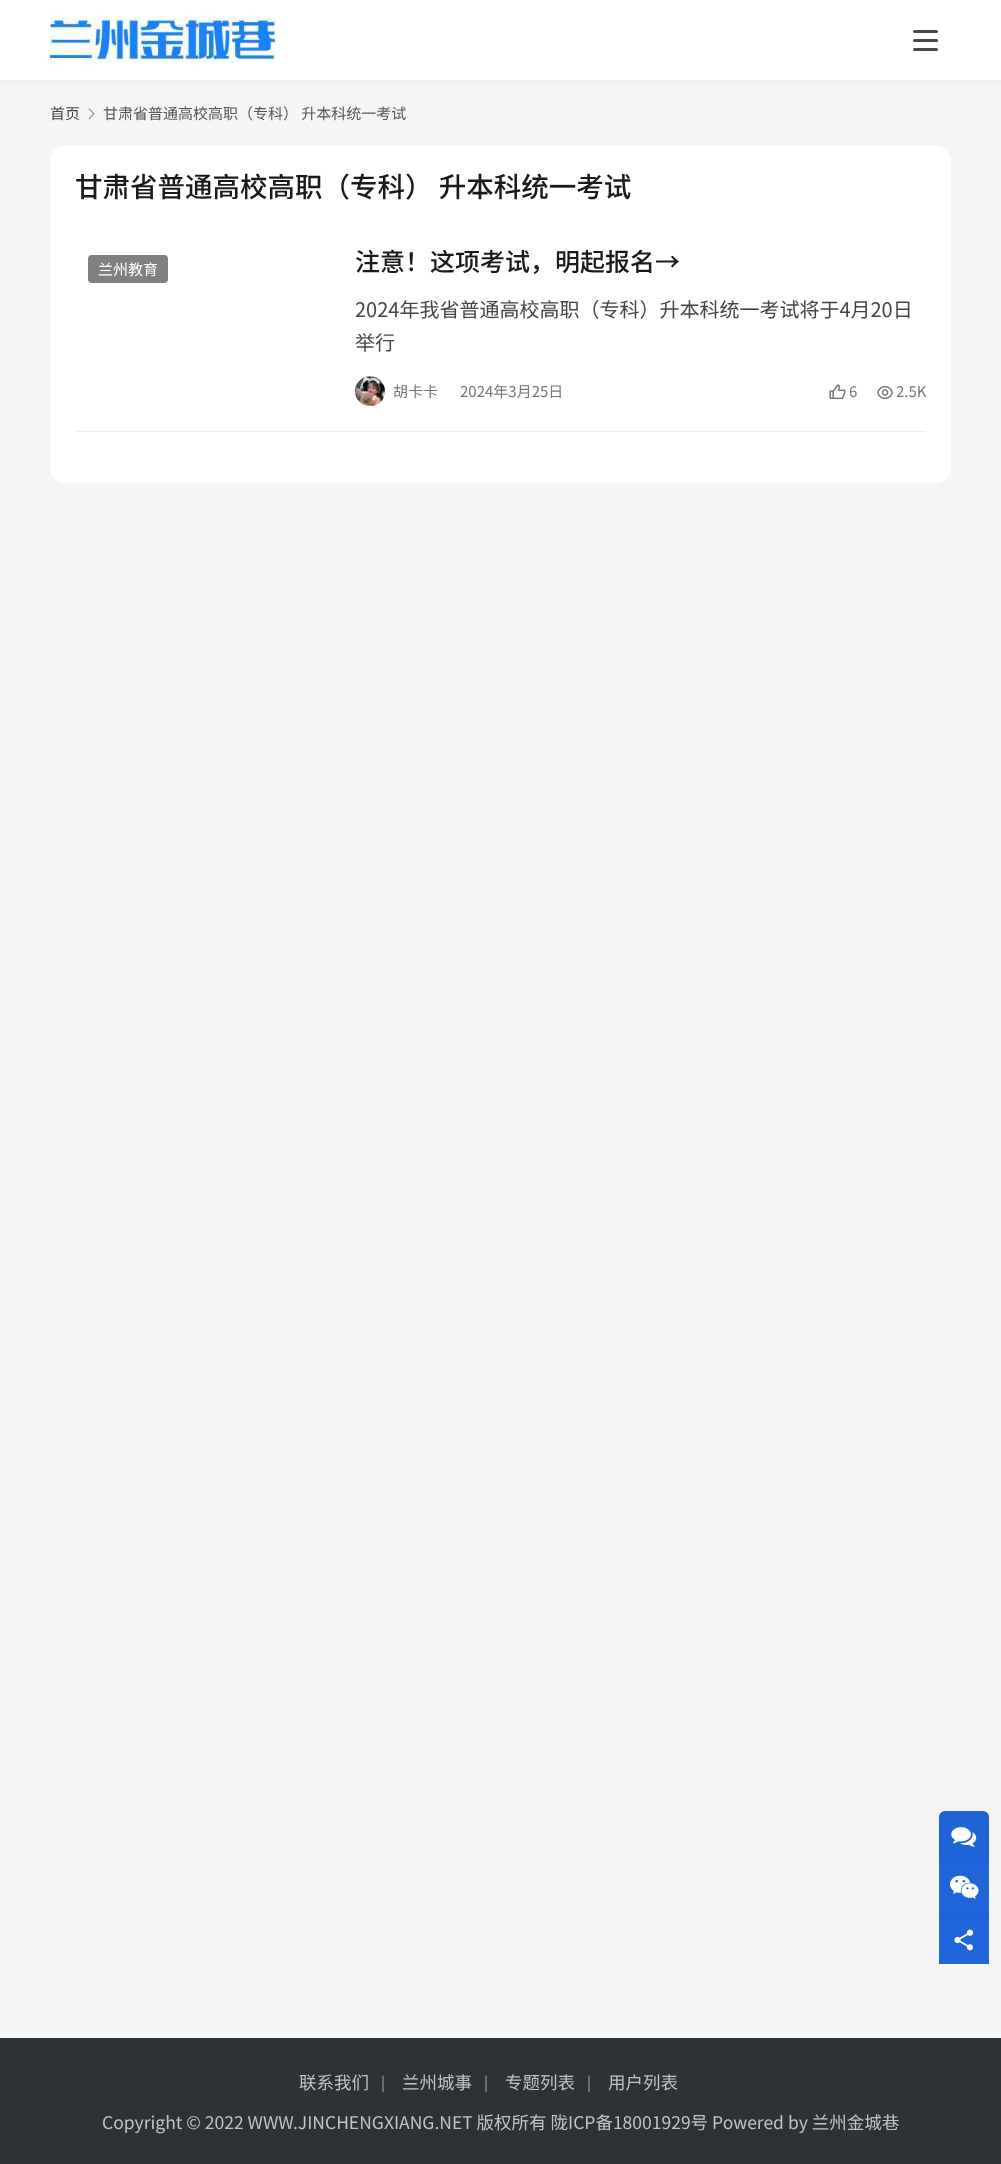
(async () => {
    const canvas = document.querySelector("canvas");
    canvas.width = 1001;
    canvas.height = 2164;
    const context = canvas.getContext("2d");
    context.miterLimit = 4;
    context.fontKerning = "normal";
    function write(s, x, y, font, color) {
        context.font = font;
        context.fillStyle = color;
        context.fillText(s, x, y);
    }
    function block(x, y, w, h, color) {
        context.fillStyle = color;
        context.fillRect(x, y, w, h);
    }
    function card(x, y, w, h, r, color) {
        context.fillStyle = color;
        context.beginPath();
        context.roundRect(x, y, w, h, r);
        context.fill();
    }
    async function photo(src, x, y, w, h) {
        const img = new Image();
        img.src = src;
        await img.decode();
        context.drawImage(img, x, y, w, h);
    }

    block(0, 0, 1001, 2164, "rgb(245, 245, 245)");
    context.fillStyle = "rgba(26, 26, 26, 0.06)";
    context.filter = "blur(2px)";
    context.beginPath();
    context.rect(-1, -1, 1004, 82);
    context.fill();
    context.filter = "none";
    block(0, 0, 1001, 80, "rgb(255, 255, 255)");
    await photo("media/1.png", 50, 17, 225, 46);
    card(913, 30, 25, 3, 1.5, "rgb(72, 72, 72)");
    card(913, 39, 25, 3, 1.5, "rgb(72, 72, 72)");
    card(913, 48, 25, 3, 1.5, "rgb(72, 72, 72)");
    write("首页", 50, 119, "15px Noto Sans CJK SC", "rgb(70, 70, 70)");
    await photo("media/2.png", 88, 108, 7, 12);
    write("甘肃省普通高校高职（专科） 升本科统一考试", 103, 119, "15px Noto Sans CJK SC", "rgb(87, 87, 87)");
    card(50, 146, 901, 337, 15, "rgb(255, 255, 255)");
    write("甘肃省普通高校高职（专科） 升本科统一考试", 75, 197, "500 27.5px Noto Sans CJK SC", "rgb(26, 26, 26)");
    block(75, 431, 851, 1, "rgb(239, 239, 239)");
    card(88, 255, 80, 28, 4, "rgb(128, 128, 128)");
    write("兰州教育", 98, 275, "15px Noto Sans CJK SC", "rgb(255, 255, 255)");
    write("注意！这项考试，明起报名→", 355, 271, "500 25px Noto Sans CJK SC", "rgb(26, 26, 26)");
    write("2024年我省普通高校高职（专科）升本科统一考试将于4月20日", 355, 317, "20px Noto Sans CJK SC", "rgb(70, 70, 70)");
    write("举行", 355, 350, "20px Noto Sans CJK SC", "rgb(70, 70, 70)");
    context.fillStyle = "rgb(245, 245, 245)";
    context.beginPath();
    context.arc(370, 391, 15, 0, Math.PI * 2);
    context.fill();
    await photo("media/3.png", 355, 376, 30, 31);
    write("胡卡卡", 393, 397, "15px Noto Sans CJK SC", "rgb(118, 118, 118)");
    write("2024年3月25日", 460, 397, "15px Noto Sans CJK SC", "rgb(118, 118, 118)");
    await photo("media/4.png", 829, 384, 17, 16);
    write("6", 849, 397, "15px Noto Sans CJK SC", "rgb(118, 118, 118)");
    await photo("media/5.png", 877, 386, 16, 13);
    write("2.5K", 896, 397, "15px Noto Sans CJK SC", "rgb(118, 118, 118)");
    context.fillStyle = "rgb(32, 107, 231)";
    context.beginPath();
    context.roundRect(939, 1811, 50, 50, [6, 6, 0, 0]);
    context.fill();
    context.fillStyle = "rgba(26, 26, 26, 0.07)";
    context.beginPath();
    context.roundRect(939, 1811, 50, 50, [6, 6, 0, 0]);
    context.fill();
    await photo("media/6.png", 951, 1827, 26, 20);
    block(939, 1862, 50, 1, "rgb(32, 107, 231)");
    block(939, 1861, 50, 1, "rgb(31, 99, 211)");
    block(939, 1863, 50, 50, "rgb(32, 101, 217)");
    await photo("media/7.png", 950, 1875, 29, 24);
    block(939, 1913, 50, 1, "rgb(31, 99, 211)");
    block(939, 1914, 50, 50, "rgb(32, 101, 217)");
    await photo("media/8.png", 954, 1929, 20, 22);
    block(0, 2038, 1001, 126, "rgb(45, 50, 54)");
    write("联系我们", 299, 2089, "17.5px Noto Sans CJK SC", "rgb(192, 194, 195)");
    write("|", 381, 2088, "15px Noto Sans CJK SC", "rgb(163, 165, 167)");
    write("兰州城事", 402, 2089, "17.5px Noto Sans CJK SC", "rgb(192, 194, 195)");
    write("|", 484, 2088, "15px Noto Sans CJK SC", "rgb(163, 165, 167)");
    write("专题列表", 505, 2089, "17.5px Noto Sans CJK SC", "rgb(192, 194, 195)");
    write("|", 587, 2088, "15px Noto Sans CJK SC", "rgb(163, 165, 167)");
    write("用户列表", 608, 2089, "17.5px Noto Sans CJK SC", "rgb(192, 194, 195)");
    write("Copyright © 2022 WWW.JINCHENGXIANG.NET 版权所有 陇ICP备18001929号 Powered by 兰州金城巷", 102, 2129, "17.5px Noto Sans CJK SC", "rgb(192, 194, 195)");
})();
